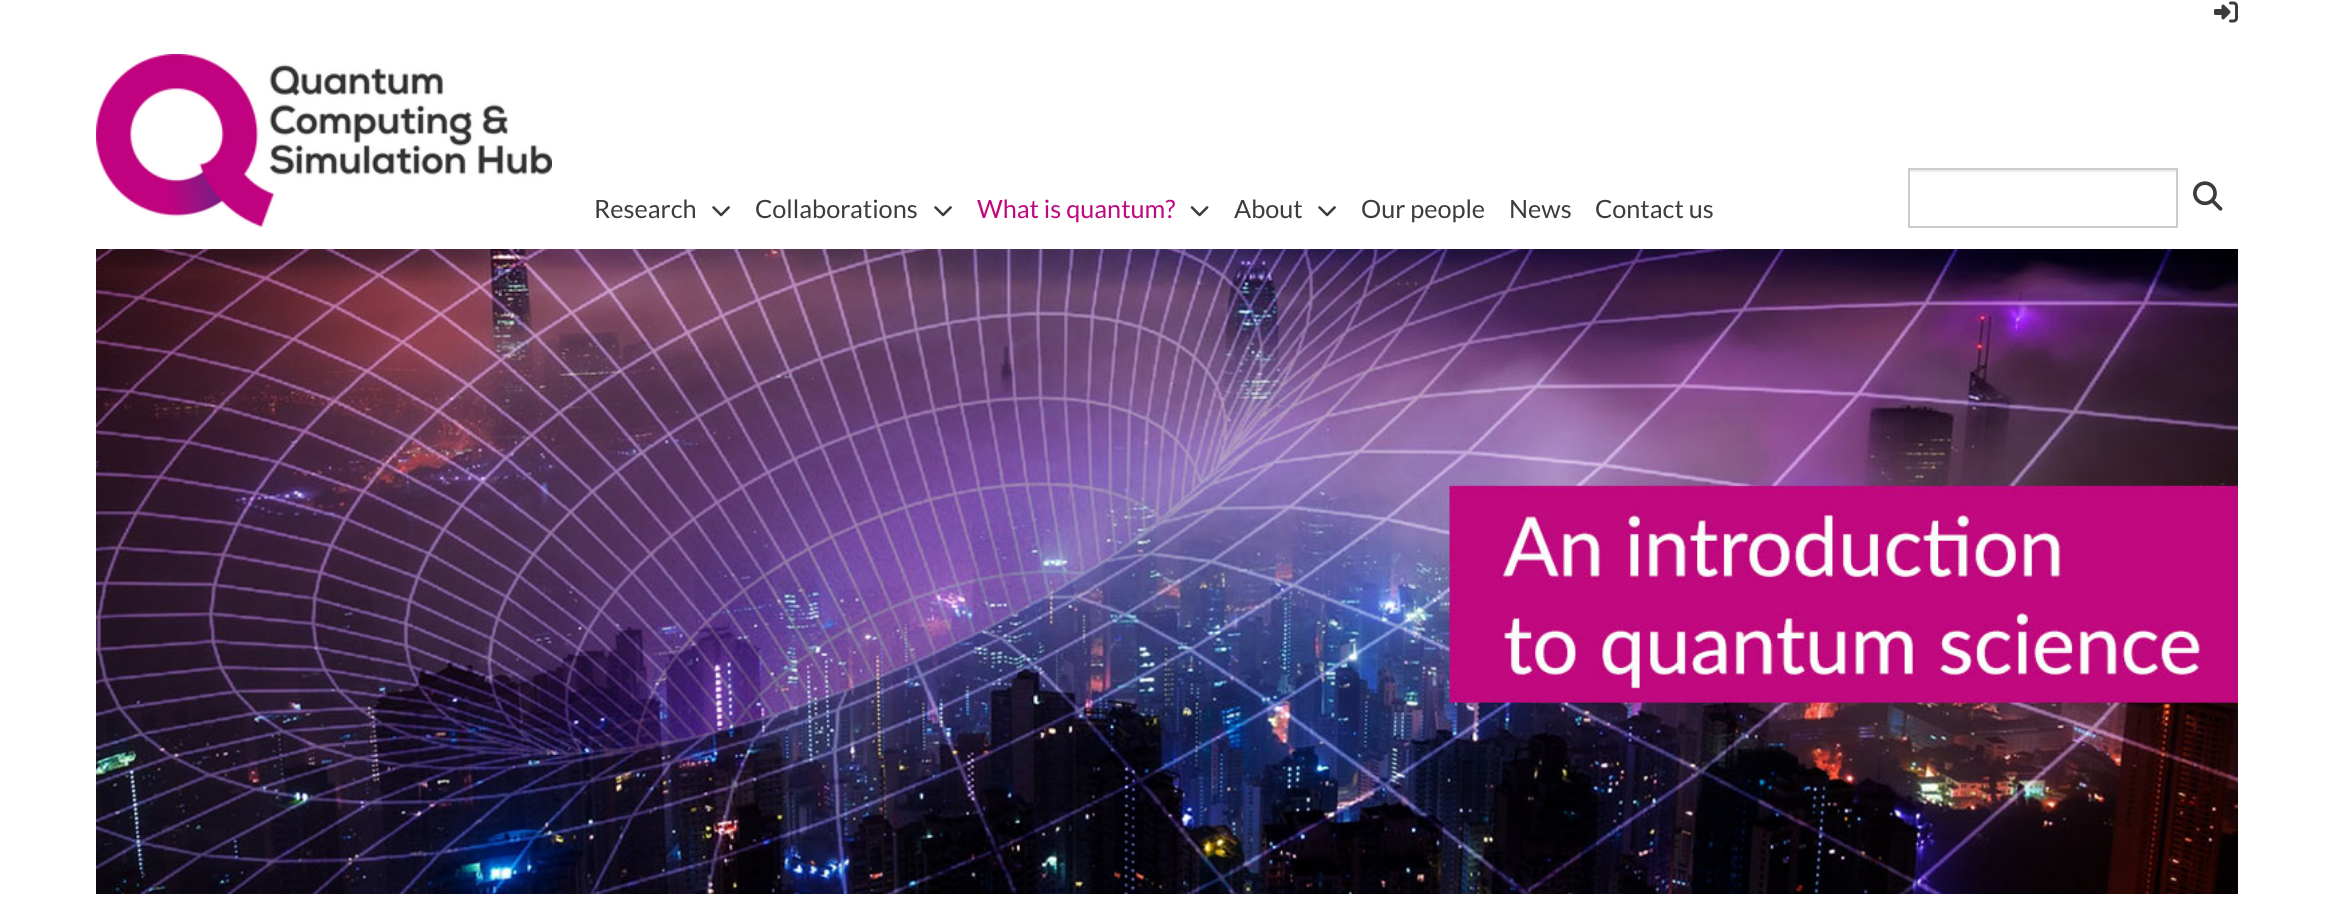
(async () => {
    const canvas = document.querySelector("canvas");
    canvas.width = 2334;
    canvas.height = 914;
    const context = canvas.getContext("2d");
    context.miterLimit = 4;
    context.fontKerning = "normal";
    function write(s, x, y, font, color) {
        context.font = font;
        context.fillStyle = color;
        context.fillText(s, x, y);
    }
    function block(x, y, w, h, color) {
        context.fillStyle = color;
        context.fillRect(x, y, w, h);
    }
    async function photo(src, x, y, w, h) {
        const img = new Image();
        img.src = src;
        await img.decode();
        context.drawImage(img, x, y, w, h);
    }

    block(0, 0, 2334, 914, "rgb(255, 255, 255)");
    await photo("media/1.png", 2214, 1, 24, 22);
    await photo("media/2.png", 96, 54, 456, 173);
    write("Research", 594, 218, "25.25px Lato", "rgb(60, 60, 59)");
    await photo("media/3.png", 712, 206, 18, 11);
    write("Collaborations", 755, 218, "25.25px Lato", "rgb(60, 60, 59)");
    await photo("media/3.png", 934, 206, 18, 11);
    write("What is quantum?", 977, 218, "25.25px Lato", "rgb(192, 8, 127)");
    await photo("media/4.png", 1190, 206, 19, 11);
    write("About", 1234, 218, "25.25px Lato", "rgb(60, 60, 59)");
    await photo("media/3.png", 1318, 206, 18, 11);
    write("Our people", 1361, 218, "25.25px Lato", "rgb(60, 60, 59)");
    write("News", 1509, 218, "25.25px Lato", "rgb(60, 60, 59)");
    write("Contact us", 1595, 218, "25.25px Lato", "rgb(60, 60, 59)");
    block(1910, 170, 267, 2, "rgb(236, 236, 236)");
    context.strokeStyle = "rgb(204, 204, 204)";
    context.lineWidth = 2;
    context.strokeRect(1909, 169, 268, 58);
    await photo("media/5.png", 2193, 181, 30, 30);
    await photo("media/6.png", 96, 249, 2142, 645);
})();
